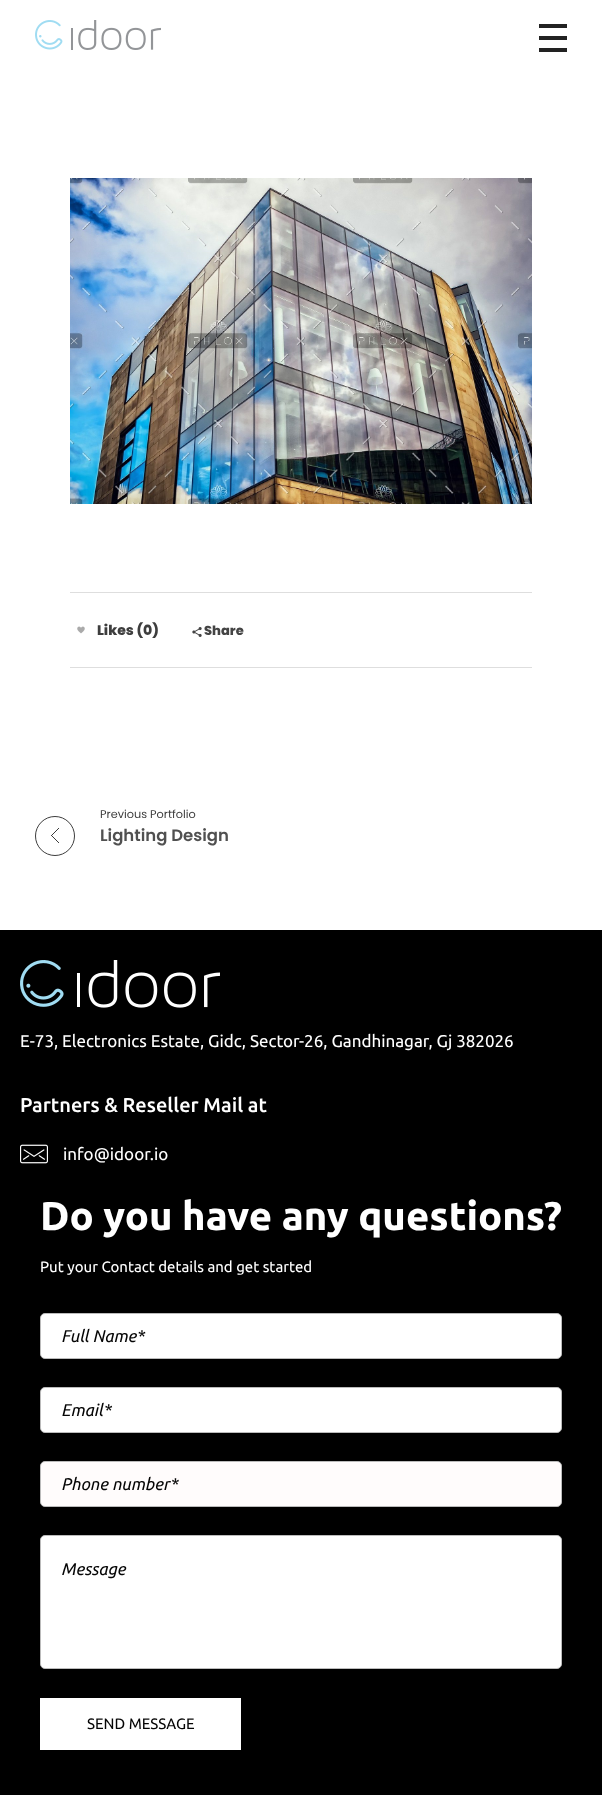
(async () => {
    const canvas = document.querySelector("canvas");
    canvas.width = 602;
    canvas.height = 1805;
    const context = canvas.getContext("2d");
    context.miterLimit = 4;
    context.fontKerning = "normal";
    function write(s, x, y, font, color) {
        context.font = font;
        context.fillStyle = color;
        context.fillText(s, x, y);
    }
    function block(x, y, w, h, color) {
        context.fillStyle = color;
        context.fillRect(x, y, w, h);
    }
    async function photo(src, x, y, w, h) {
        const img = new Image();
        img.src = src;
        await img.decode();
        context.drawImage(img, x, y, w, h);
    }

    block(0, 0, 602, 1805, "rgb(255, 255, 255)");
    await photo("media/1.png", 35, 20, 126, 30);
    block(539, 24, 28, 4, "rgb(34, 34, 34)");
    block(539, 36, 28, 4, "rgb(34, 34, 34)");
    block(539, 48, 28, 4, "rgb(34, 34, 34)");
    await photo("media/2.png", 70, 178, 462, 326);
    block(70, 592, 462, 1, "rgb(222, 222, 222)");
    block(70, 667, 462, 1, "rgb(222, 222, 222)");
    await photo("media/3.png", 77, 626, 8, 8);
    write("Likes (0)", 97, 635, "800 14px Poppins", "rgb(61, 61, 61)");
    await photo("media/4.png", 192, 627, 10, 10);
    write("Share", 204, 635, "800 13px Poppins", "rgb(68, 68, 68)");
    write("Previous Portfolio", 100, 818, "11.25px Poppins", "rgb(61, 61, 61)");
    context.beginPath();
    context.arc(55, 836, 19.5, 0, Math.PI * 2);
    context.strokeStyle = "rgb(61, 61, 61)";
    context.stroke();
    await photo("media/5.png", 51, 828, 8, 15);
    write("Lighting Design", 100, 841, "600 16.5px Poppins", "rgb(80, 80, 80)");
    block(0, 930, 602, 865, "rgb(0, 0, 0)");
    await photo("media/6.png", 20, 960, 200, 48);
    write("E-73, Electronics Estate, Gidc, Sector-26, Gandhinagar, Gj 382026", 20, 1047, "17px Ubuntu", "rgb(255, 255, 255)");
    write("Partners & Reseller Mail at", 20, 1112, "500 20px Ubuntu", "rgb(255, 255, 255)");
    await photo("media/7.png", 20, 1144, 28, 20);
    write("info@idoor.io", 63, 1160, "17px Ubuntu", "rgb(255, 255, 255)");
    write("Do you have any questions?", 40, 1230, "bold 40px Ubuntu", "rgb(255, 255, 255)");
    write("Put your Contact details and get started", 40, 1272, "15px Ubuntu", "rgb(255, 255, 255)");
    context.beginPath();
    context.roundRect(40.5, 1313.5, 521, 45, 4.5);
    context.fill();
    context.strokeStyle = "rgb(187, 187, 187)";
    context.stroke();
    write("Full Name*", 61, 1342, "italic 17px Ubuntu", "rgb(5, 5, 5)");
    context.fillStyle = "rgb(255, 255, 255)";
    context.beginPath();
    context.roundRect(40.5, 1387.5, 521, 45, 4.5);
    context.fill();
    context.stroke();
    write("Email*", 61, 1416, "italic 17px Ubuntu", "rgb(5, 5, 5)");
    context.fillStyle = "rgb(255, 252, 252)";
    context.beginPath();
    context.roundRect(40.5, 1461.5, 521, 45, 4.5);
    context.fill();
    context.stroke();
    write("Phone number*", 61, 1490, "italic 17px Ubuntu", "rgb(5, 5, 5)");
    context.fillStyle = "rgb(255, 255, 255)";
    context.beginPath();
    context.roundRect(40.5, 1535.5, 521, 133, 4.5);
    context.fill();
    context.stroke();
    write("Message", 61, 1575, "italic 17px Ubuntu", "rgb(5, 5, 5)");
    block(40, 1698, 201, 52, "rgb(255, 255, 255)");
    write("SEND MESSAGE", 87, 1729, "15px Ubuntu", "rgb(5, 5, 5)");
})();
